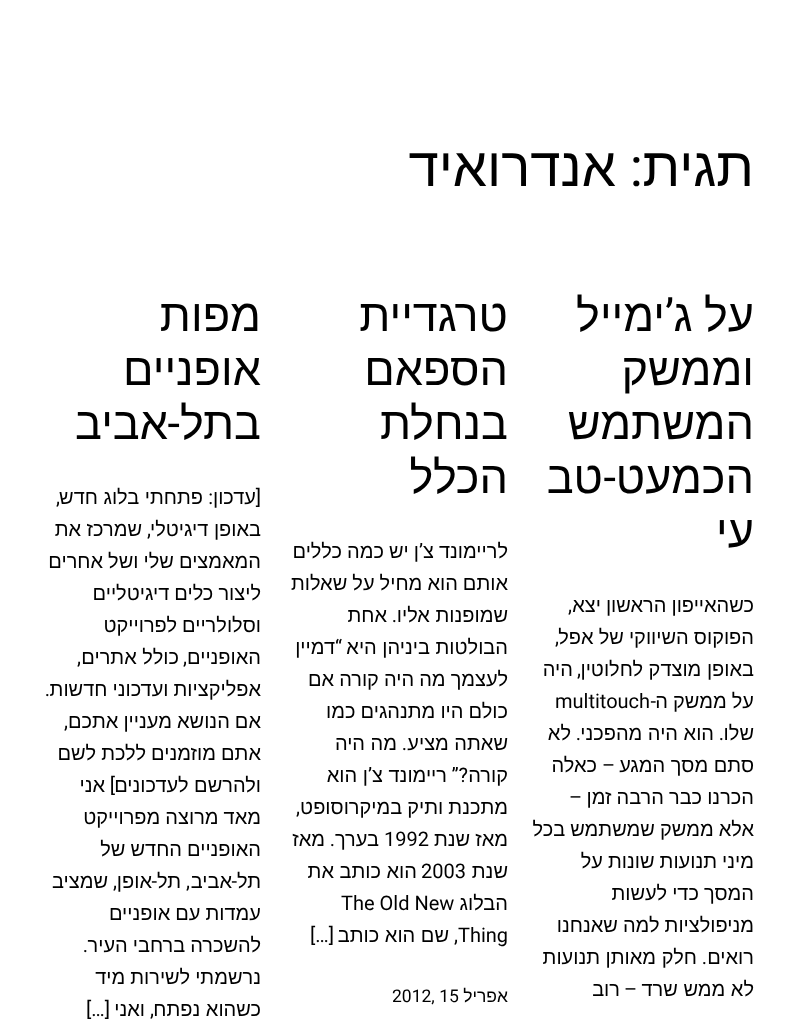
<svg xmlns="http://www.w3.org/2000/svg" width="793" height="1024">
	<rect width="100%" height="100%" fill="#FFFFFF" />
	<text x="754" y="186" font-family="Liberation Sans" font-size="54.5" direction="rtl" fill="#000000">תגית</text>
	<text x="643" y="186" font-family="Roboto" font-size="54.5" direction="rtl" fill="#000000">:</text>
	<text x="616" y="186" font-family="Liberation Sans" font-size="54.5" direction="rtl" fill="#000000">אנדרואיד</text>
	<text x="754" y="331" word-spacing="-1" font-family="Liberation Sans" font-size="45" direction="rtl" fill="#000000">על ג</text>
	<text x="674" y="331" font-family="Roboto" font-size="45" direction="rtl" fill="#000000">’</text>
	<g font-family="Liberation Sans" font-size="45" direction="rtl" fill="#000000">
		<text x="665" y="331">ימייל</text>
		<text x="754" y="385">וממשק</text>
		<text x="754" y="439">המשתמש</text>
		<text x="754" y="493">הכמעט</text>
	</g>
	<text x="616" y="493" font-family="Roboto" font-size="45" direction="rtl" fill="#000000">-</text>
	<g font-family="Liberation Sans" font-size="45" direction="rtl" fill="#000000">
		<text x="603" y="493">טב</text>
		<text x="754" y="547">עי</text>
	</g>
	<text x="754" y="612" word-spacing="-0.5" font-family="Liberation Sans" font-size="20" direction="rtl" fill="#000000">כשהאייפון הראשון יצא</text>
	<text x="572" y="612" font-family="Roboto" font-size="20" direction="rtl" fill="#000000">,</text>
	<text x="754" y="644" word-spacing="-0.5" font-family="Liberation Sans" font-size="20" direction="rtl" fill="#000000">הפוקוס השיווקי של אפל</text>
	<text x="559" y="644" font-family="Roboto" font-size="20" direction="rtl" fill="#000000">,</text>
	<text x="754" y="676" font-family="Liberation Sans" font-size="20" direction="rtl" fill="#000000">באופן מוצדק לחלוטין</text>
	<text x="581" y="676" font-family="Roboto" font-size="20" direction="rtl" fill="#000000">,</text>
	<g font-family="Liberation Sans" font-size="20" direction="rtl" fill="#000000">
		<text x="573" y="676">היה</text>
		<text x="754" y="708" word-spacing="-0.5">על ממשק ה</text>
	</g>
	<text x="656" y="708" font-family="Roboto" font-size="20" direction="rtl" fill="#000000">-</text>
	<text x="555" y="708" font-family="Roboto" font-size="20" fill="#000000">multitouch</text>
	<text x="754" y="740" font-family="Liberation Sans" font-size="20" direction="rtl" fill="#000000">שלו</text>
	<text x="724" y="740" font-family="Roboto" font-size="20" direction="rtl" fill="#000000">.</text>
	<text x="714" y="740" font-family="Liberation Sans" font-size="20" direction="rtl" fill="#000000">הוא היה מהפכני</text>
	<text x="581" y="740" font-family="Roboto" font-size="20" direction="rtl" fill="#000000">.</text>
	<g font-family="Liberation Sans" font-size="20" direction="rtl" fill="#000000">
		<text x="571" y="740">לא</text>
		<text x="754" y="772">סתם מסך המגע</text>
	</g>
	<text x="615" y="772" font-family="Roboto" font-size="20" direction="rtl" fill="#000000">–</text>
	<g font-family="Liberation Sans" font-size="20" direction="rtl" fill="#000000">
		<text x="597" y="772">כאלה</text>
		<text x="754" y="804" word-spacing="-0.5">הכרנו כבר הרבה זמן</text>
	</g>
	<text x="582" y="804" font-family="Roboto" font-size="20" direction="rtl" fill="#000000">–</text>
	<g font-family="Liberation Sans" font-size="20" direction="rtl" fill="#000000">
		<text x="754" y="836" word-spacing="-0.5">אלא ממשק שמשתמש בכל</text>
		<text x="754" y="868" word-spacing="-0.5">מיני תנועות שונות על</text>
		<text x="754" y="900" word-spacing="-0.5">המסך כדי לעשות</text>
		<text x="754" y="932" word-spacing="-0.5">מניפולציות למה שאנחנו</text>
		<text x="754" y="964">רואים</text>
	</g>
	<text x="707" y="964" font-family="Roboto" font-size="20" direction="rtl" fill="#000000">.</text>
	<g font-family="Liberation Sans" font-size="20" direction="rtl" fill="#000000">
		<text x="697" y="964">חלק מאותן תנועות</text>
		<text x="754" y="996">לא ממש שרד</text>
	</g>
	<text x="637" y="996" font-family="Roboto" font-size="20" direction="rtl" fill="#000000">–</text>
	<text x="620" y="996" font-family="Liberation Sans" font-size="20" direction="rtl" fill="#000000">רוב</text>
	<g font-family="Liberation Sans" font-size="45" direction="rtl" fill="#000000">
		<text x="508" y="331">טרגדיית</text>
		<text x="508" y="385">הספאם</text>
		<text x="508" y="439">בנחלת</text>
		<text x="508" y="493">הכלל</text>
	</g>
	<text x="508" y="558" word-spacing="-0.5" font-family="Liberation Sans" font-size="20" direction="rtl" fill="#000000">לריימונד צ</text>
	<text x="423" y="558" font-family="Roboto" font-size="20" direction="rtl" fill="#000000">’</text>
	<g font-family="Liberation Sans" font-size="20" direction="rtl" fill="#000000">
		<text x="419" y="558" word-spacing="-0.5">ן יש כמה כללים</text>
		<text x="508" y="590" word-spacing="-0.5">אותם הוא מחיל על שאלות</text>
		<text x="508" y="622">שמופנות אליו</text>
	</g>
	<text x="397" y="622" font-family="Roboto" font-size="20" direction="rtl" fill="#000000">.</text>
	<g font-family="Liberation Sans" font-size="20" direction="rtl" fill="#000000">
		<text x="387" y="622">אחת</text>
		<text x="508" y="654">הבולטות ביניהן היא</text>
	</g>
	<text x="342" y="654" font-family="Roboto" font-size="20" direction="rtl" fill="#000000">“</text>
	<g font-family="Liberation Sans" font-size="20" direction="rtl" fill="#000000">
		<text x="335" y="654">דמיין</text>
		<text x="508" y="686" word-spacing="-0.5">לעצמך מה היה קורה אם</text>
		<text x="508" y="718" word-spacing="-0.5">כולם היו מתנהגים כמו</text>
		<text x="508" y="750">שאתה מציע</text>
	</g>
	<text x="407" y="750" font-family="Roboto" font-size="20" direction="rtl" fill="#000000">.</text>
	<g font-family="Liberation Sans" font-size="20" direction="rtl" fill="#000000">
		<text x="397" y="750">מה היה</text>
		<text x="508" y="782">קורה</text>
	</g>
	<text x="468" y="782" font-family="Roboto" font-size="20" direction="rtl" fill="#000000">?”</text>
	<text x="447" y="782" font-family="Liberation Sans" font-size="20" direction="rtl" fill="#000000">ריימונד צ</text>
	<text x="372" y="782" font-family="Roboto" font-size="20" direction="rtl" fill="#000000">’</text>
	<g font-family="Liberation Sans" font-size="20" direction="rtl" fill="#000000">
		<text x="368" y="782">ן הוא</text>
		<text x="508" y="814" word-spacing="-0.5">מתכנת ותיק במיקרוסופט</text>
	</g>
	<text x="300" y="814" font-family="Roboto" font-size="20" direction="rtl" fill="#000000">,</text>
	<text x="508" y="846" word-spacing="-0.5" font-family="Liberation Sans" font-size="20" direction="rtl" fill="#000000">מאז שנת</text>
	<text x="384" y="846" font-family="Roboto" font-size="20" fill="#000000">1992</text>
	<text x="379" y="846" font-family="Liberation Sans" font-size="20" direction="rtl" fill="#000000">בערך</text>
	<text x="335" y="846" font-family="Roboto" font-size="20" direction="rtl" fill="#000000">.</text>
	<g font-family="Liberation Sans" font-size="20" direction="rtl" fill="#000000">
		<text x="325" y="846">מאז</text>
		<text x="508" y="878">שנת</text>
	</g>
	<text x="421" y="878" font-family="Roboto" font-size="20" fill="#000000">2003</text>
	<g font-family="Liberation Sans" font-size="20" direction="rtl" fill="#000000">
		<text x="417" y="878">הוא כותב את</text>
		<text x="508" y="910">הבלוג</text>
	</g>
	<g font-family="Roboto" font-size="20" fill="#000000">
		<text x="341" y="910">The Old New</text>
		<text x="458" y="942">Thing</text>
	</g>
	<text x="458" y="942" font-family="Roboto" font-size="20" direction="rtl" fill="#000000">,</text>
	<text x="449" y="942" font-family="Liberation Sans" font-size="20" direction="rtl" fill="#000000">שם הוא כותב</text>
	<text x="334" y="942" font-family="Roboto" font-size="20" direction="rtl" fill="#000000">[…]</text>
	<text x="508" y="1002" font-family="Liberation Sans" font-size="17.5" direction="rtl" fill="#000000">אפריל</text>
	<text x="392" y="1002" font-family="Roboto" font-size="17.5" fill="#000000">2012, 15</text>
	<g font-family="Liberation Sans" font-size="45" direction="rtl" fill="#000000">
		<text x="261" y="331">מפות</text>
		<text x="261" y="385">אופניים</text>
		<text x="261" y="439">בתל</text>
	</g>
	<text x="180" y="439" font-family="Roboto" font-size="45" direction="rtl" fill="#000000">-</text>
	<text x="168" y="439" font-family="Liberation Sans" font-size="45" direction="rtl" fill="#000000">אביב</text>
	<text x="261" y="504" font-family="Roboto" font-size="20" direction="rtl" fill="#000000">[</text>
	<text x="256" y="504" font-family="Liberation Sans" font-size="20" direction="rtl" fill="#000000">עדכון</text>
	<text x="213" y="504" font-family="Roboto" font-size="20" direction="rtl" fill="#000000">:</text>
	<text x="203" y="504" font-family="Liberation Sans" font-size="20" direction="rtl" fill="#000000">פתחתי בלוג חדש</text>
	<text x="60" y="504" font-family="Roboto" font-size="20" direction="rtl" fill="#000000">,</text>
	<text x="261" y="536" font-family="Liberation Sans" font-size="20" direction="rtl" fill="#000000">באופן דיגיטלי</text>
	<text x="151" y="536" font-family="Roboto" font-size="20" direction="rtl" fill="#000000">,</text>
	<g font-family="Liberation Sans" font-size="20" direction="rtl" fill="#000000">
		<text x="142" y="536">שמרכז את</text>
		<text x="261" y="568" word-spacing="-0.5">המאמצים שלי ושל אחרים</text>
		<text x="261" y="600" word-spacing="-0.5">ליצור כלים דיגיטליים</text>
		<text x="261" y="632" word-spacing="-0.5">וסלולריים לפרוייקט</text>
		<text x="261" y="664">האופניים</text>
	</g>
	<text x="187" y="664" font-family="Roboto" font-size="20" direction="rtl" fill="#000000">,</text>
	<text x="179" y="664" font-family="Liberation Sans" font-size="20" direction="rtl" fill="#000000">כולל אתרים</text>
	<text x="81" y="664" font-family="Roboto" font-size="20" direction="rtl" fill="#000000">,</text>
	<text x="261" y="696" word-spacing="-0.5" font-family="Liberation Sans" font-size="20" direction="rtl" fill="#000000">אפליקציות ועדכוני חדשות</text>
	<text x="50" y="696" font-family="Roboto" font-size="20" direction="rtl" fill="#000000">.</text>
	<text x="261" y="728" word-spacing="-0.5" font-family="Liberation Sans" font-size="20" direction="rtl" fill="#000000">אם הנושא מעניין אתכם</text>
	<text x="68" y="728" font-family="Roboto" font-size="20" direction="rtl" fill="#000000">,</text>
	<g font-family="Liberation Sans" font-size="20" direction="rtl" fill="#000000">
		<text x="261" y="760" word-spacing="-0.5">אתם מוזמנים ללכת לשם</text>
		<text x="261" y="792">ולהרשם לעדכונים</text>
	</g>
	<text x="115" y="792" font-family="Roboto" font-size="20" direction="rtl" fill="#000000">]</text>
	<g font-family="Liberation Sans" font-size="20" direction="rtl" fill="#000000">
		<text x="105" y="792">אני</text>
		<text x="261" y="824" word-spacing="-0.5">מאד מרוצה מפרוייקט</text>
		<text x="261" y="856" word-spacing="-0.5">האופניים החדש של</text>
		<text x="261" y="888">תל</text>
	</g>
	<text x="237" y="888" font-family="Roboto" font-size="20" direction="rtl" fill="#000000">-</text>
	<g font-family="Liberation Sans" font-size="20" direction="rtl" fill="#000000">
		<text x="232" y="888">אביב</text>
		<text x="181" y="888">תל</text>
	</g>
	<text x="157" y="888" font-family="Roboto" font-size="20" direction="rtl" fill="#000000">-</text>
	<g font-family="Liberation Sans" font-size="20" direction="rtl" fill="#000000">
		<text x="152" y="888">אופן</text>
		<text x="108" y="888">שמציב</text>
	</g>
	<g font-family="Roboto" font-size="20" direction="rtl" fill="#000000">
		<text x="190" y="888">,</text>
		<text x="117" y="888">,</text>
	</g>
	<g font-family="Liberation Sans" font-size="20" direction="rtl" fill="#000000">
		<text x="261" y="920" word-spacing="-0.5">עמדות עם אופניים</text>
		<text x="261" y="952" word-spacing="-0.5">להשכרה ברחבי העיר</text>
	</g>
	<text x="88" y="952" font-family="Roboto" font-size="20" direction="rtl" fill="#000000">.</text>
	<g font-family="Liberation Sans" font-size="20" direction="rtl" fill="#000000">
		<text x="261" y="984" word-spacing="-0.5">נרשמתי לשירות מיד</text>
		<text x="261" y="1016">כשהוא נפתח</text>
	</g>
	<text x="154" y="1016" font-family="Roboto" font-size="20" direction="rtl" fill="#000000">,</text>
	<text x="145" y="1016" font-family="Liberation Sans" font-size="20" direction="rtl" fill="#000000">ואני</text>
	<text x="110" y="1016" font-family="Roboto" font-size="20" direction="rtl" fill="#000000">[…]</text>
</svg>
